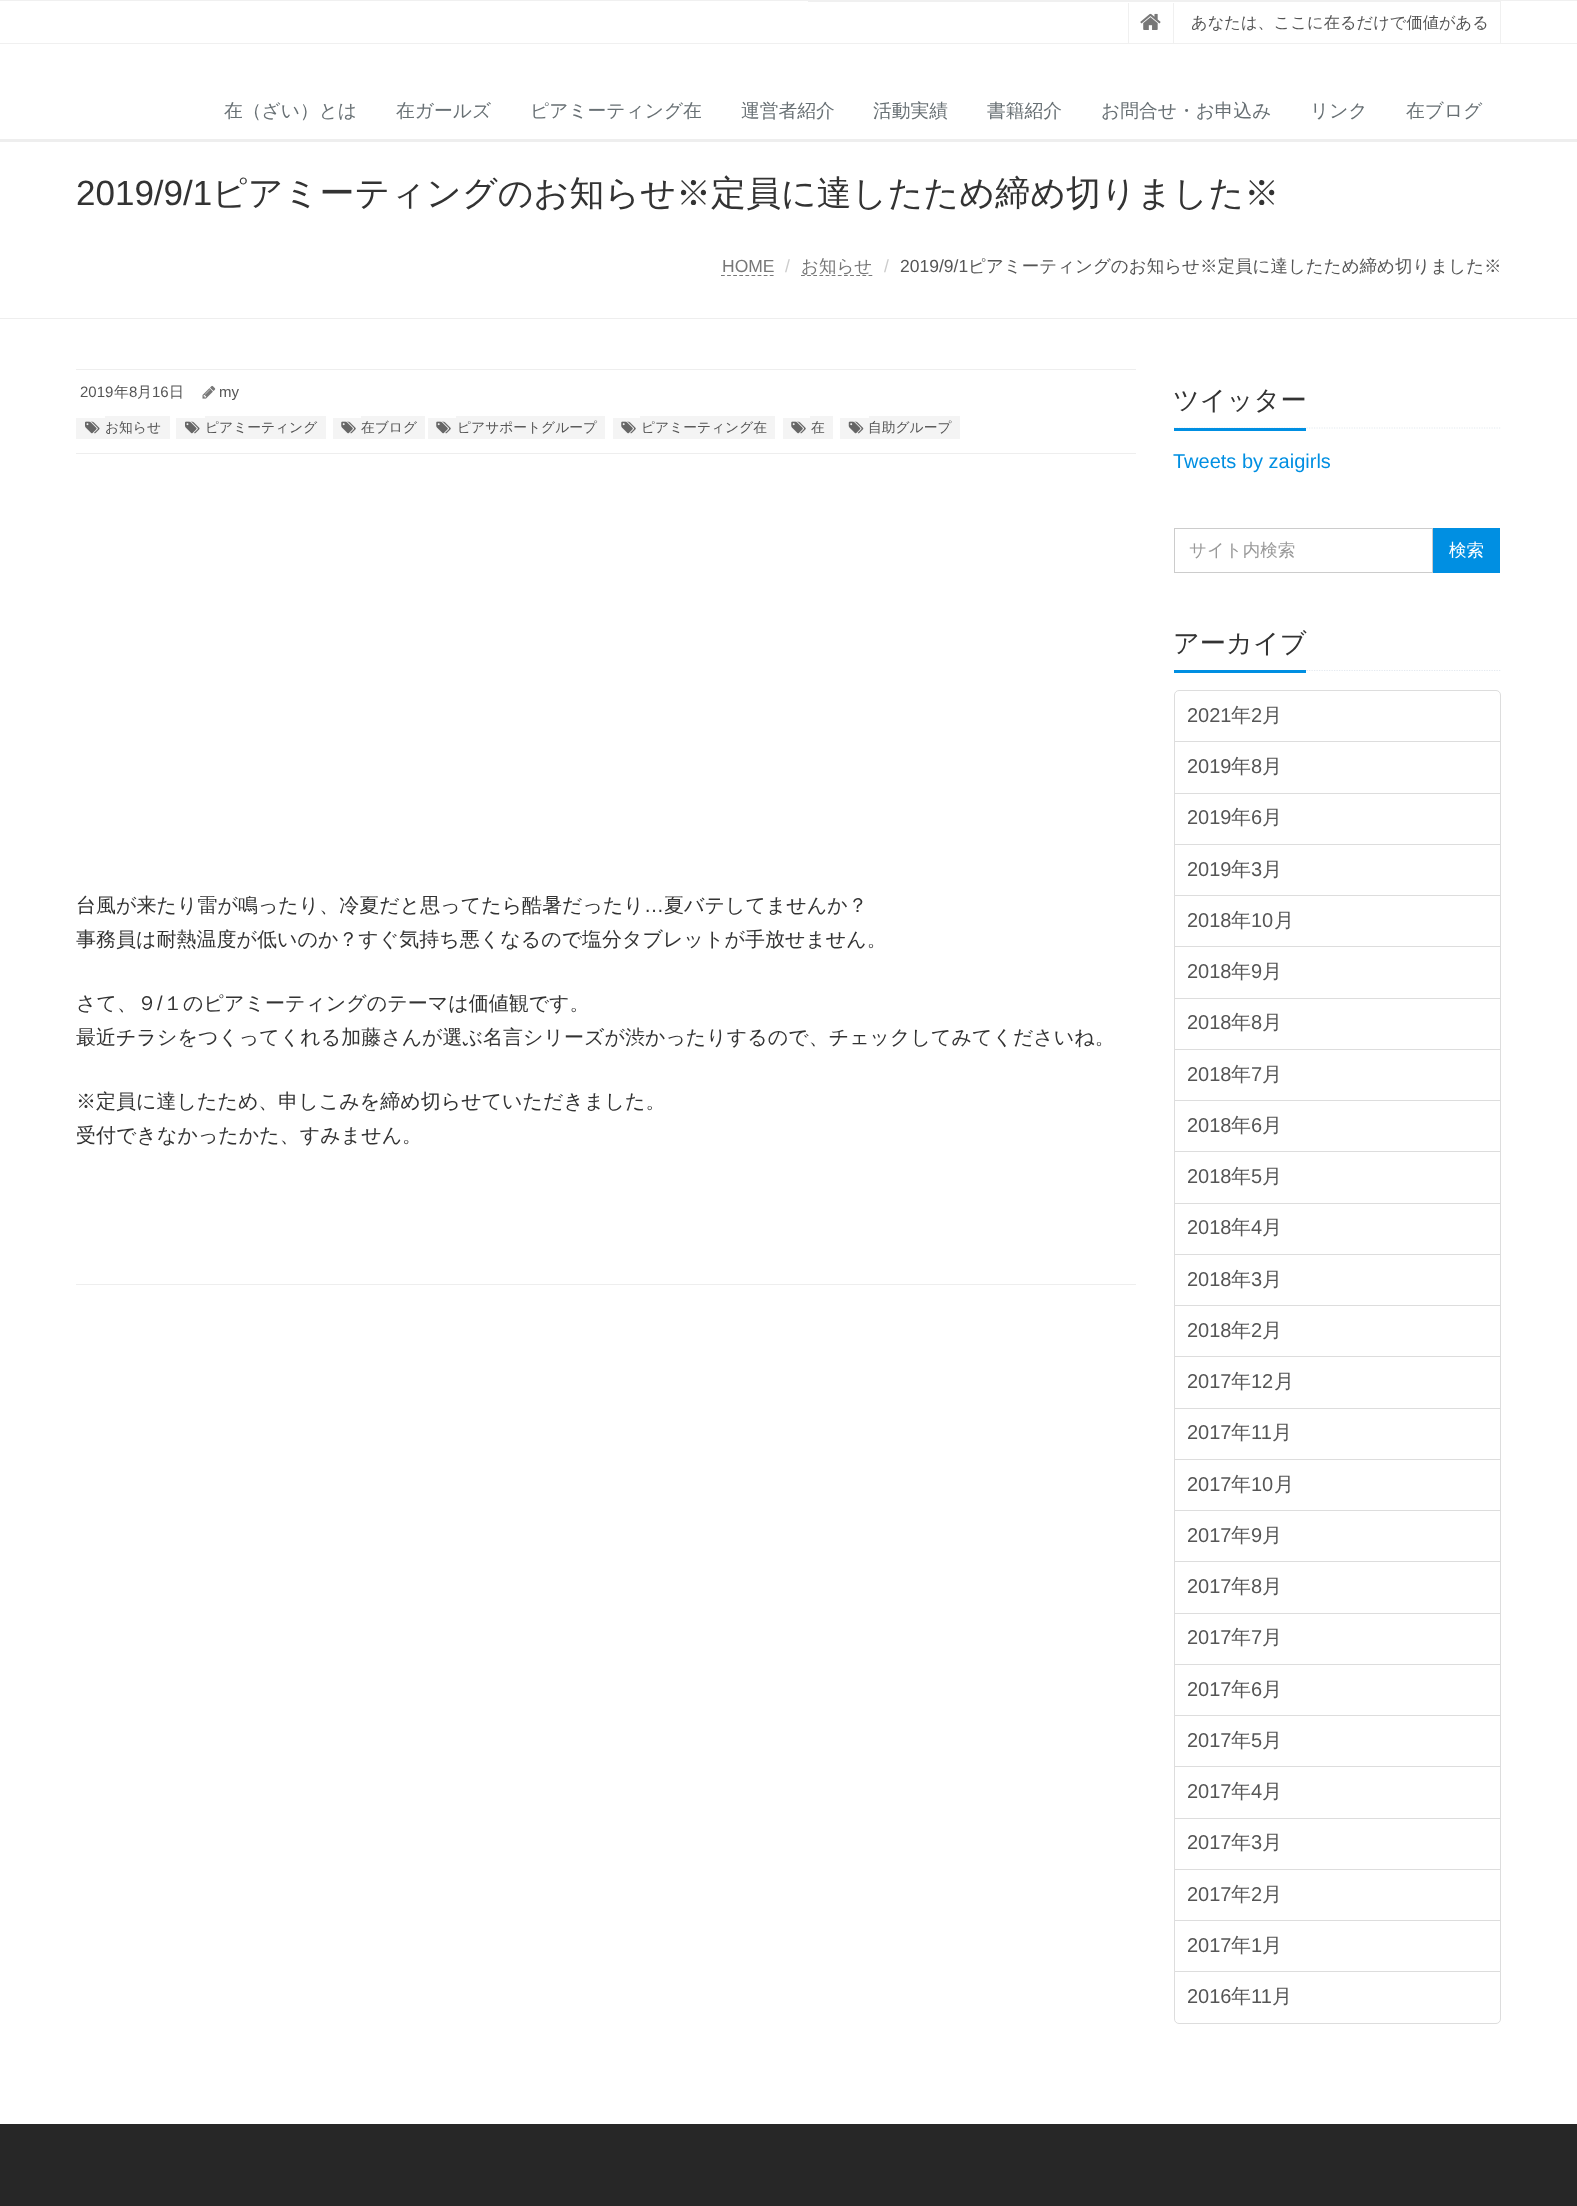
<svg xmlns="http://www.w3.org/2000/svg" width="1577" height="2206">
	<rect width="100%" height="100%" fill="#FFFFFF" />
	<rect x="0" y="139" width="1577" height="3" fill="#EEEEEE" />
	<rect x="0" y="0" width="1577" height="1" fill="#F0F0F0" />
	<rect x="0" y="43" width="1577" height="1" fill="#F0F0F0" />
	<rect x="808" y="1" width="693" height="1" fill="#F0F0F0" />
	<rect x="1500" y="1" width="1" height="42" fill="#F0F0F0" />
	<rect x="1173" y="3" width="1" height="40" fill="#F0F0F0" />
	<rect x="1128" y="3" width="1" height="40" fill="#F0F0F0" />
	<image x="1140" y="13" width="21" height="17" href="assets/img1.png" />
	<text x="1191" y="28" font-family="WenQuanYi Zen Hei" font-size="16.25" font-weight="500" fill="#555555">あなたは、ここに在るだけで価値がある</text>
	<g font-family="WenQuanYi Zen Hei" font-size="18.75" font-weight="500" fill="#687074">
		<text x="224" y="117">在（ざい）とは</text>
		<text x="396" y="117">在ガールズ</text>
		<text x="530" y="117">ピアミーティング在</text>
		<text x="741" y="117">運営者紹介</text>
		<text x="873" y="117">活動実績</text>
		<text x="987" y="117">書籍紹介</text>
		<text x="1101" y="117">お問合せ・お申込み</text>
		<text x="1310" y="117">リンク</text>
		<text x="1406" y="117">在ブログ</text>
	</g>
	<rect x="0" y="318" width="1577" height="1" fill="#EEEEEE" />
	<text x="76" y="205" font-family="Liberation Sans" font-size="35" fill="#333333">2019/9/1</text>
	<text x="212" y="205" font-family="WenQuanYi Zen Hei" font-size="35" font-weight="500" fill="#333333">ピアミーティングのお知らせ※定員に達したため締め切りました※</text>
	<text x="722" y="272" font-family="Liberation Sans" font-size="17.5" fill="#777777">HOME</text>
	<path d="M721 275.5H774" fill="none" stroke="#777777" stroke-width="1.2" stroke-dasharray="3.75 2.35" />
	<text x="785" y="272" font-family="Liberation Sans" font-size="17.5" fill="#CCCCCC">/</text>
	<path d="M801 275.5H872.5" fill="none" stroke="#777777" stroke-width="1.2" stroke-dasharray="3.75 2.39" />
	<text x="801" y="272" font-family="WenQuanYi Zen Hei" font-size="17.5" font-weight="500" fill="#777777">お知らせ</text>
	<text x="884" y="272" font-family="Liberation Sans" font-size="17.5" fill="#CCCCCC">/</text>
	<text x="900" y="272" font-family="Liberation Sans" font-size="17.5" fill="#555555">2019/9/1</text>
	<text x="968" y="272" font-family="WenQuanYi Zen Hei" font-size="17.5" font-weight="500" fill="#555555">ピアミーティングのお知らせ※定員に達したため締め切りました※</text>
	<rect x="76" y="369" width="1060" height="1" fill="#EEEEEE" />
	<rect x="76" y="453" width="1060" height="1" fill="#EEEEEE" />
	<text x="80" y="397" font-family="Liberation Sans" font-size="15" fill="#555555">2019</text>
	<text x="114" y="397" font-family="WenQuanYi Zen Hei" font-size="15" font-weight="500" fill="#555555">年</text>
	<text x="129" y="397" font-family="Liberation Sans" font-size="15" fill="#555555">8</text>
	<text x="137" y="397" font-family="WenQuanYi Zen Hei" font-size="15" font-weight="500" fill="#555555">月</text>
	<text x="152" y="397" font-family="Liberation Sans" font-size="15" fill="#555555">16</text>
	<text x="169" y="397" font-family="WenQuanYi Zen Hei" font-size="15" font-weight="500" fill="#555555">日</text>
	<image x="202" y="385" width="14" height="14" href="assets/img2.png" />
	<text x="219" y="397" font-family="Liberation Sans" font-size="15" fill="#555555">my</text>
	<rect x="76" y="418" width="29" height="21" fill="#F4F4F4" />
	<image x="85" y="421" width="15" height="13" href="assets/img3.png" />
	<rect x="105" y="416" width="65" height="23" fill="#F4F4F4" />
	<text x="105" y="432" font-family="WenQuanYi Zen Hei" font-size="13.75" font-weight="500" fill="#555555">お知らせ</text>
	<rect x="176" y="418" width="29" height="21" fill="#F4F4F4" />
	<image x="185" y="421" width="15" height="13" href="assets/img3.png" />
	<rect x="205" y="416" width="121" height="23" fill="#F4F4F4" />
	<text x="205" y="432" font-family="WenQuanYi Zen Hei" font-size="13.75" font-weight="500" fill="#555555">ピアミーティング</text>
	<rect x="333" y="418" width="28" height="21" fill="#F4F4F4" />
	<image x="341" y="421" width="15" height="13" href="assets/img4.png" />
	<rect x="361" y="416" width="64" height="23" fill="#F4F4F4" />
	<text x="361" y="432" font-family="WenQuanYi Zen Hei" font-size="13.75" font-weight="500" fill="#555555">在ブログ</text>
	<rect x="428" y="418" width="28" height="21" fill="#F4F4F4" />
	<image x="436" y="421" width="15" height="13" href="assets/img4.png" />
	<rect x="456" y="416" width="149" height="23" fill="#F4F4F4" />
	<text x="457" y="432" font-family="WenQuanYi Zen Hei" font-size="13.75" font-weight="500" fill="#555555">ピアサポートグループ</text>
	<rect x="613" y="418" width="27" height="21" fill="#F4F4F4" />
	<image x="621" y="421" width="15" height="13" href="assets/img4.png" />
	<rect x="640" y="416" width="135" height="23" fill="#F4F4F4" />
	<text x="641" y="432" font-family="WenQuanYi Zen Hei" font-size="13.75" font-weight="500" fill="#555555">ピアミーティング在</text>
	<rect x="783" y="418" width="27" height="21" fill="#F4F4F4" />
	<image x="791" y="421" width="15" height="13" href="assets/img4.png" />
	<rect x="810" y="416" width="23" height="23" fill="#F4F4F4" />
	<text x="811" y="432" font-family="WenQuanYi Zen Hei" font-size="13.75" font-weight="500" fill="#555555">在</text>
	<rect x="840" y="418" width="29" height="21" fill="#F4F4F4" />
	<image x="848" y="421" width="16" height="13" href="assets/img5.png" />
	<rect x="869" y="416" width="91" height="23" fill="#F4F4F4" />
	<text x="868" y="432" font-family="WenQuanYi Zen Hei" font-size="13.75" font-weight="500" fill="#555555">自助グループ</text>
	<text x="76" y="912" font-family="WenQuanYi Zen Hei" font-size="20" font-weight="500" fill="#333333">台風が来たり雷が鳴ったり、冷夏だと思ってたら酷暑だったり</text>
	<text x="644" y="912" font-family="Liberation Sans" font-size="20" fill="#333333">…</text>
	<g font-family="WenQuanYi Zen Hei" font-size="20" font-weight="500" fill="#333333">
		<text x="664" y="912">夏バテしてませんか？</text>
		<text x="76" y="946">事務員は耐熱温度が低いのか？すぐ気持ち悪くなるので塩分タブレットが手放せません。</text>
		<text x="76" y="1010">さて、９</text>
	</g>
	<text x="157" y="1010" font-family="Liberation Sans" font-size="20" fill="#333333">/</text>
	<g font-family="WenQuanYi Zen Hei" font-size="20" font-weight="500" fill="#333333">
		<text x="163" y="1010">１のピアミーティングのテーマは価値観です。</text>
		<text x="76" y="1044">最近チラシをつくってくれる加藤さんが選ぶ名言シリーズが渋かったりするので、チェックしてみてくださいね。</text>
		<text x="76" y="1108">※定員に達したため、申しこみを締め切らせていただきました。</text>
		<text x="76" y="1142">受付できなかったかた、すみません。</text>
	</g>
	<rect x="76" y="1284" width="1060" height="1" fill="#EEEEEE" />
	<path d="M1174 428H1501" fill="none" stroke="#E4E9F0" stroke-width="1.2" stroke-dasharray="1.25 1.25" />
	<rect x="1174" y="428" width="132" height="3" fill="#008FE2" />
	<text x="1173" y="409" font-family="WenQuanYi Zen Hei" font-size="26.25" font-weight="500" fill="#333333">ツイッター</text>
	<text x="1173" y="468" font-family="Liberation Sans" font-size="20" fill="#008FE2">Tweets by zaigirls</text>
	<rect x="1174.5" y="528.5" width="258" height="44" fill="none" stroke="#CCCCCC" />
	<text x="1189" y="556" font-family="WenQuanYi Zen Hei" font-size="17.5" font-weight="500" fill="#999999">サイト内検索</text>
	<rect x="1433" y="528" width="67" height="45" fill="#008FE2" />
	<text x="1449" y="556" font-family="WenQuanYi Zen Hei" font-size="17.5" font-weight="500" fill="#FFFFFF">検索</text>
	<path d="M1174 670.5H1501" fill="none" stroke="#E4E9F0" stroke-width="1.2" stroke-dasharray="1.25 1.25" />
	<rect x="1174" y="670" width="132" height="3" fill="#008FE2" />
	<text x="1173" y="652" font-family="WenQuanYi Zen Hei" font-size="26.25" font-weight="500" fill="#333333">アーカイブ</text>
	<path d="M1179 690.5H1496C1498.5 690.5 1500.5 692.5 1500.5 695V742.5H1174.5V695C1174.5 692.5 1176.5 690.5 1179 690.5Z" fill="none" stroke="#DDDDDD" />
	<text x="1187" y="722" font-family="Liberation Sans" font-size="20" fill="#555555">2021</text>
	<text x="1231" y="722" font-family="WenQuanYi Zen Hei" font-size="20" font-weight="500" fill="#555555">年</text>
	<text x="1251" y="722" font-family="Liberation Sans" font-size="20" fill="#555555">2</text>
	<text x="1262" y="722" font-family="WenQuanYi Zen Hei" font-size="20" font-weight="500" fill="#555555">月</text>
	<rect x="1175" y="742" width="325" height="1" fill="#FFFFFF" />
	<rect x="1174.5" y="741.5" width="326" height="52" fill="none" stroke="#DDDDDD" />
	<text x="1187" y="773" font-family="Liberation Sans" font-size="20" fill="#555555">2019</text>
	<text x="1231" y="773" font-family="WenQuanYi Zen Hei" font-size="20" font-weight="500" fill="#555555">年</text>
	<text x="1251" y="773" font-family="Liberation Sans" font-size="20" fill="#555555">8</text>
	<text x="1262" y="773" font-family="WenQuanYi Zen Hei" font-size="20" font-weight="500" fill="#555555">月</text>
	<rect x="1174.5" y="793.5" width="326" height="51" fill="none" stroke="#DDDDDD" />
	<text x="1187" y="824" font-family="Liberation Sans" font-size="20" fill="#555555">2019</text>
	<text x="1231" y="824" font-family="WenQuanYi Zen Hei" font-size="20" font-weight="500" fill="#555555">年</text>
	<text x="1251" y="824" font-family="Liberation Sans" font-size="20" fill="#555555">6</text>
	<text x="1262" y="824" font-family="WenQuanYi Zen Hei" font-size="20" font-weight="500" fill="#555555">月</text>
	<rect x="1174.5" y="844.5" width="326" height="51" fill="none" stroke="#DDDDDD" />
	<text x="1187" y="876" font-family="Liberation Sans" font-size="20" fill="#555555">2019</text>
	<text x="1231" y="876" font-family="WenQuanYi Zen Hei" font-size="20" font-weight="500" fill="#555555">年</text>
	<text x="1251" y="876" font-family="Liberation Sans" font-size="20" fill="#555555">3</text>
	<text x="1262" y="876" font-family="WenQuanYi Zen Hei" font-size="20" font-weight="500" fill="#555555">月</text>
	<rect x="1174.5" y="895.5" width="326" height="52" fill="none" stroke="#DDDDDD" />
	<text x="1187" y="927" font-family="Liberation Sans" font-size="20" fill="#555555">2018</text>
	<text x="1231" y="927" font-family="WenQuanYi Zen Hei" font-size="20" font-weight="500" fill="#555555">年</text>
	<text x="1251" y="927" font-family="Liberation Sans" font-size="20" fill="#555555">10</text>
	<text x="1274" y="927" font-family="WenQuanYi Zen Hei" font-size="20" font-weight="500" fill="#555555">月</text>
	<rect x="1175" y="947" width="325" height="1" fill="#FFFFFF" />
	<rect x="1174.5" y="946.5" width="326" height="52" fill="none" stroke="#DDDDDD" />
	<text x="1187" y="978" font-family="Liberation Sans" font-size="20" fill="#555555">2018</text>
	<text x="1231" y="978" font-family="WenQuanYi Zen Hei" font-size="20" font-weight="500" fill="#555555">年</text>
	<text x="1251" y="978" font-family="Liberation Sans" font-size="20" fill="#555555">9</text>
	<text x="1262" y="978" font-family="WenQuanYi Zen Hei" font-size="20" font-weight="500" fill="#555555">月</text>
	<rect x="1174.5" y="998.5" width="326" height="51" fill="none" stroke="#DDDDDD" />
	<text x="1187" y="1029" font-family="Liberation Sans" font-size="20" fill="#555555">2018</text>
	<text x="1231" y="1029" font-family="WenQuanYi Zen Hei" font-size="20" font-weight="500" fill="#555555">年</text>
	<text x="1251" y="1029" font-family="Liberation Sans" font-size="20" fill="#555555">8</text>
	<text x="1262" y="1029" font-family="WenQuanYi Zen Hei" font-size="20" font-weight="500" fill="#555555">月</text>
	<rect x="1174.5" y="1049.5" width="326" height="51" fill="none" stroke="#DDDDDD" />
	<text x="1187" y="1081" font-family="Liberation Sans" font-size="20" fill="#555555">2018</text>
	<text x="1231" y="1081" font-family="WenQuanYi Zen Hei" font-size="20" font-weight="500" fill="#555555">年</text>
	<text x="1251" y="1081" font-family="Liberation Sans" font-size="20" fill="#555555">7</text>
	<text x="1262" y="1081" font-family="WenQuanYi Zen Hei" font-size="20" font-weight="500" fill="#555555">月</text>
	<rect x="1174.5" y="1100.5" width="326" height="52" fill="none" stroke="#DDDDDD" />
	<text x="1187" y="1132" font-family="Liberation Sans" font-size="20" fill="#555555">2018</text>
	<text x="1231" y="1132" font-family="WenQuanYi Zen Hei" font-size="20" font-weight="500" fill="#555555">年</text>
	<text x="1251" y="1132" font-family="Liberation Sans" font-size="20" fill="#555555">6</text>
	<text x="1262" y="1132" font-family="WenQuanYi Zen Hei" font-size="20" font-weight="500" fill="#555555">月</text>
	<rect x="1175" y="1152" width="325" height="1" fill="#FFFFFF" />
	<rect x="1174.5" y="1151.5" width="326" height="52" fill="none" stroke="#DDDDDD" />
	<text x="1187" y="1183" font-family="Liberation Sans" font-size="20" fill="#555555">2018</text>
	<text x="1231" y="1183" font-family="WenQuanYi Zen Hei" font-size="20" font-weight="500" fill="#555555">年</text>
	<text x="1251" y="1183" font-family="Liberation Sans" font-size="20" fill="#555555">5</text>
	<text x="1262" y="1183" font-family="WenQuanYi Zen Hei" font-size="20" font-weight="500" fill="#555555">月</text>
	<rect x="1174.5" y="1203.5" width="326" height="51" fill="none" stroke="#DDDDDD" />
	<text x="1187" y="1234" font-family="Liberation Sans" font-size="20" fill="#555555">2018</text>
	<text x="1231" y="1234" font-family="WenQuanYi Zen Hei" font-size="20" font-weight="500" fill="#555555">年</text>
	<text x="1251" y="1234" font-family="Liberation Sans" font-size="20" fill="#555555">4</text>
	<text x="1262" y="1234" font-family="WenQuanYi Zen Hei" font-size="20" font-weight="500" fill="#555555">月</text>
	<rect x="1174.5" y="1254.5" width="326" height="51" fill="none" stroke="#DDDDDD" />
	<text x="1187" y="1286" font-family="Liberation Sans" font-size="20" fill="#555555">2018</text>
	<text x="1231" y="1286" font-family="WenQuanYi Zen Hei" font-size="20" font-weight="500" fill="#555555">年</text>
	<text x="1251" y="1286" font-family="Liberation Sans" font-size="20" fill="#555555">3</text>
	<text x="1262" y="1286" font-family="WenQuanYi Zen Hei" font-size="20" font-weight="500" fill="#555555">月</text>
	<rect x="1174.5" y="1305.5" width="326" height="52" fill="none" stroke="#DDDDDD" />
	<text x="1187" y="1337" font-family="Liberation Sans" font-size="20" fill="#555555">2018</text>
	<text x="1231" y="1337" font-family="WenQuanYi Zen Hei" font-size="20" font-weight="500" fill="#555555">年</text>
	<text x="1251" y="1337" font-family="Liberation Sans" font-size="20" fill="#555555">2</text>
	<text x="1262" y="1337" font-family="WenQuanYi Zen Hei" font-size="20" font-weight="500" fill="#555555">月</text>
	<rect x="1175" y="1357" width="325" height="1" fill="#FFFFFF" />
	<rect x="1174.5" y="1356.5" width="326" height="52" fill="none" stroke="#DDDDDD" />
	<text x="1187" y="1388" font-family="Liberation Sans" font-size="20" fill="#555555">2017</text>
	<text x="1231" y="1388" font-family="WenQuanYi Zen Hei" font-size="20" font-weight="500" fill="#555555">年</text>
	<text x="1251" y="1388" font-family="Liberation Sans" font-size="20" fill="#555555">12</text>
	<text x="1274" y="1388" font-family="WenQuanYi Zen Hei" font-size="20" font-weight="500" fill="#555555">月</text>
	<rect x="1174.5" y="1408.5" width="326" height="51" fill="none" stroke="#DDDDDD" />
	<text x="1187" y="1439" font-family="Liberation Sans" font-size="20" fill="#555555">2017</text>
	<text x="1231" y="1439" font-family="WenQuanYi Zen Hei" font-size="20" font-weight="500" fill="#555555">年</text>
	<text x="1251" y="1439" font-family="Liberation Sans" font-size="20" fill="#555555">11</text>
	<text x="1272" y="1439" font-family="WenQuanYi Zen Hei" font-size="20" font-weight="500" fill="#555555">月</text>
	<rect x="1174.5" y="1459.5" width="326" height="51" fill="none" stroke="#DDDDDD" />
	<text x="1187" y="1491" font-family="Liberation Sans" font-size="20" fill="#555555">2017</text>
	<text x="1231" y="1491" font-family="WenQuanYi Zen Hei" font-size="20" font-weight="500" fill="#555555">年</text>
	<text x="1251" y="1491" font-family="Liberation Sans" font-size="20" fill="#555555">10</text>
	<text x="1274" y="1491" font-family="WenQuanYi Zen Hei" font-size="20" font-weight="500" fill="#555555">月</text>
	<rect x="1174.5" y="1510.5" width="326" height="52" fill="none" stroke="#DDDDDD" />
	<text x="1187" y="1542" font-family="Liberation Sans" font-size="20" fill="#555555">2017</text>
	<text x="1231" y="1542" font-family="WenQuanYi Zen Hei" font-size="20" font-weight="500" fill="#555555">年</text>
	<text x="1251" y="1542" font-family="Liberation Sans" font-size="20" fill="#555555">9</text>
	<text x="1262" y="1542" font-family="WenQuanYi Zen Hei" font-size="20" font-weight="500" fill="#555555">月</text>
	<rect x="1175" y="1562" width="325" height="1" fill="#FFFFFF" />
	<rect x="1174.5" y="1561.5" width="326" height="52" fill="none" stroke="#DDDDDD" />
	<text x="1187" y="1593" font-family="Liberation Sans" font-size="20" fill="#555555">2017</text>
	<text x="1231" y="1593" font-family="WenQuanYi Zen Hei" font-size="20" font-weight="500" fill="#555555">年</text>
	<text x="1251" y="1593" font-family="Liberation Sans" font-size="20" fill="#555555">8</text>
	<text x="1262" y="1593" font-family="WenQuanYi Zen Hei" font-size="20" font-weight="500" fill="#555555">月</text>
	<rect x="1174.5" y="1613.5" width="326" height="51" fill="none" stroke="#DDDDDD" />
	<text x="1187" y="1644" font-family="Liberation Sans" font-size="20" fill="#555555">2017</text>
	<text x="1231" y="1644" font-family="WenQuanYi Zen Hei" font-size="20" font-weight="500" fill="#555555">年</text>
	<text x="1251" y="1644" font-family="Liberation Sans" font-size="20" fill="#555555">7</text>
	<text x="1262" y="1644" font-family="WenQuanYi Zen Hei" font-size="20" font-weight="500" fill="#555555">月</text>
	<rect x="1174.5" y="1664.5" width="326" height="51" fill="none" stroke="#DDDDDD" />
	<text x="1187" y="1696" font-family="Liberation Sans" font-size="20" fill="#555555">2017</text>
	<text x="1231" y="1696" font-family="WenQuanYi Zen Hei" font-size="20" font-weight="500" fill="#555555">年</text>
	<text x="1251" y="1696" font-family="Liberation Sans" font-size="20" fill="#555555">6</text>
	<text x="1262" y="1696" font-family="WenQuanYi Zen Hei" font-size="20" font-weight="500" fill="#555555">月</text>
	<rect x="1174.5" y="1715.5" width="326" height="52" fill="none" stroke="#DDDDDD" />
	<text x="1187" y="1747" font-family="Liberation Sans" font-size="20" fill="#555555">2017</text>
	<text x="1231" y="1747" font-family="WenQuanYi Zen Hei" font-size="20" font-weight="500" fill="#555555">年</text>
	<text x="1251" y="1747" font-family="Liberation Sans" font-size="20" fill="#555555">5</text>
	<text x="1262" y="1747" font-family="WenQuanYi Zen Hei" font-size="20" font-weight="500" fill="#555555">月</text>
	<rect x="1175" y="1767" width="325" height="1" fill="#FFFFFF" />
	<rect x="1174.5" y="1766.5" width="326" height="52" fill="none" stroke="#DDDDDD" />
	<text x="1187" y="1798" font-family="Liberation Sans" font-size="20" fill="#555555">2017</text>
	<text x="1231" y="1798" font-family="WenQuanYi Zen Hei" font-size="20" font-weight="500" fill="#555555">年</text>
	<text x="1251" y="1798" font-family="Liberation Sans" font-size="20" fill="#555555">4</text>
	<text x="1262" y="1798" font-family="WenQuanYi Zen Hei" font-size="20" font-weight="500" fill="#555555">月</text>
	<rect x="1174.5" y="1818.5" width="326" height="51" fill="none" stroke="#DDDDDD" />
	<text x="1187" y="1849" font-family="Liberation Sans" font-size="20" fill="#555555">2017</text>
	<text x="1231" y="1849" font-family="WenQuanYi Zen Hei" font-size="20" font-weight="500" fill="#555555">年</text>
	<text x="1251" y="1849" font-family="Liberation Sans" font-size="20" fill="#555555">3</text>
	<text x="1262" y="1849" font-family="WenQuanYi Zen Hei" font-size="20" font-weight="500" fill="#555555">月</text>
	<rect x="1174.5" y="1869.5" width="326" height="51" fill="none" stroke="#DDDDDD" />
	<text x="1187" y="1901" font-family="Liberation Sans" font-size="20" fill="#555555">2017</text>
	<text x="1231" y="1901" font-family="WenQuanYi Zen Hei" font-size="20" font-weight="500" fill="#555555">年</text>
	<text x="1251" y="1901" font-family="Liberation Sans" font-size="20" fill="#555555">2</text>
	<text x="1262" y="1901" font-family="WenQuanYi Zen Hei" font-size="20" font-weight="500" fill="#555555">月</text>
	<rect x="1174.5" y="1920.5" width="326" height="52" fill="none" stroke="#DDDDDD" />
	<text x="1187" y="1952" font-family="Liberation Sans" font-size="20" fill="#555555">2017</text>
	<text x="1231" y="1952" font-family="WenQuanYi Zen Hei" font-size="20" font-weight="500" fill="#555555">年</text>
	<text x="1251" y="1952" font-family="Liberation Sans" font-size="20" fill="#555555">1</text>
	<text x="1262" y="1952" font-family="WenQuanYi Zen Hei" font-size="20" font-weight="500" fill="#555555">月</text>
	<path d="M1174.5 1971.5H1500.5V2019C1500.5 2021.5 1498.5 2023.5 1496 2023.5H1179C1176.5 2023.5 1174.5 2021.5 1174.5 2019Z" fill="#FFFFFF" stroke="#DDDDDD" />
	<text x="1187" y="2003" font-family="Liberation Sans" font-size="20" fill="#555555">2016</text>
	<text x="1231" y="2003" font-family="WenQuanYi Zen Hei" font-size="20" font-weight="500" fill="#555555">年</text>
	<text x="1251" y="2003" font-family="Liberation Sans" font-size="20" fill="#555555">11</text>
	<text x="1272" y="2003" font-family="WenQuanYi Zen Hei" font-size="20" font-weight="500" fill="#555555">月</text>
	<rect x="0" y="2124" width="1577" height="82" fill="#272727" />
</svg>
